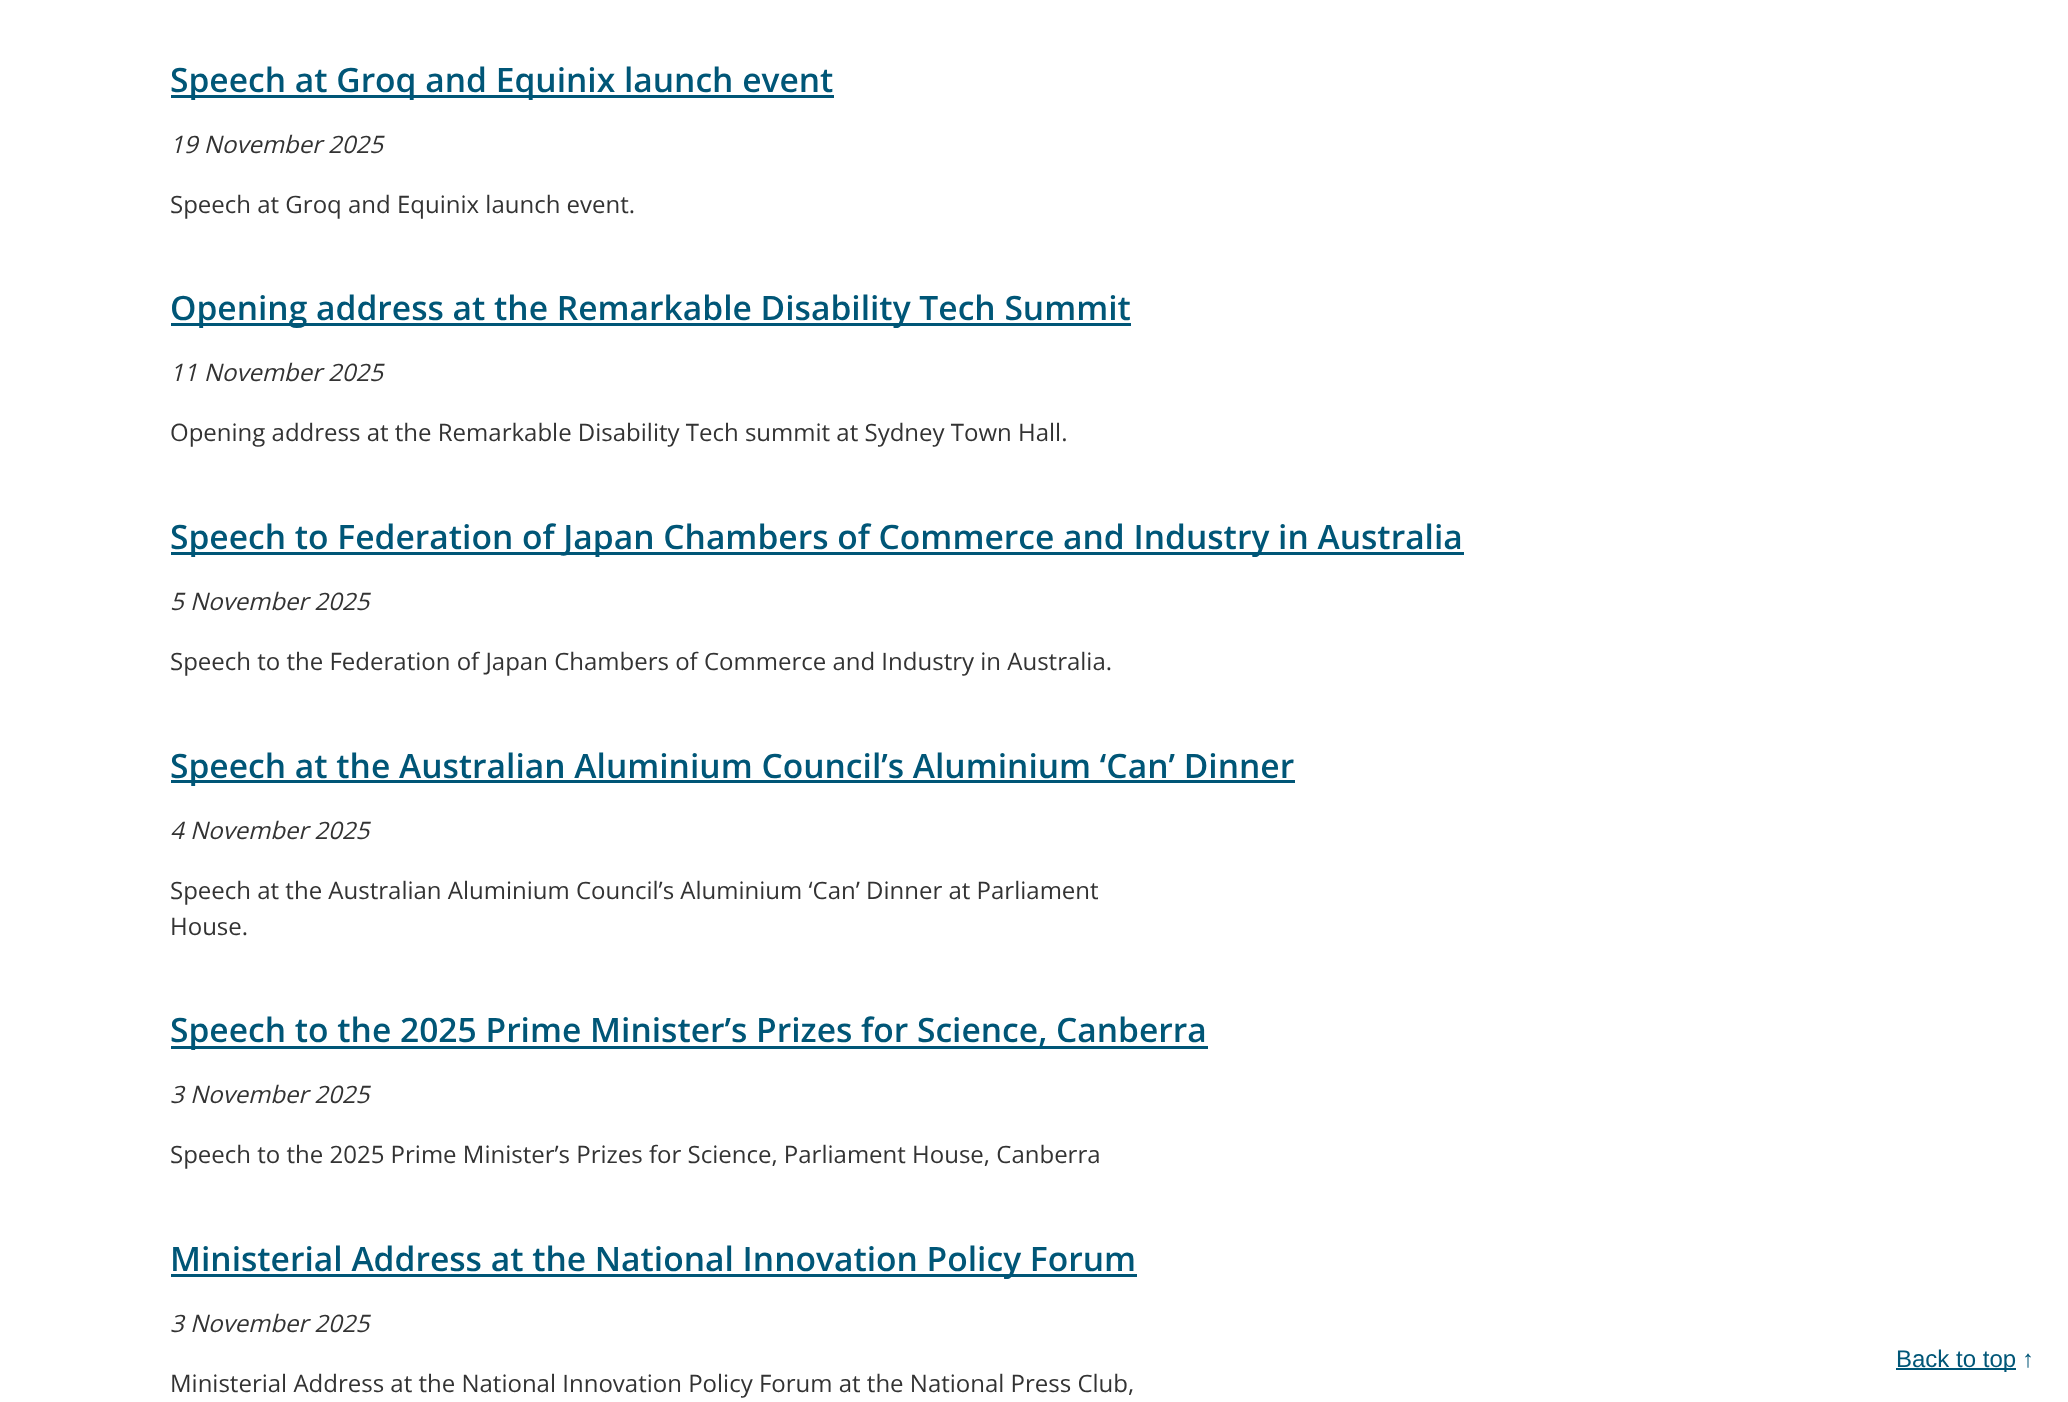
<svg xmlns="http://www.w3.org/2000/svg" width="2068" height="1402">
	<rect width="100%" height="100%" fill="#FFFFFF" />
	<rect x="171" y="95" width="663" height="3" fill="#005677" />
	<text x="170" y="92" font-family="Open Sans" font-size="33.6" font-weight="600" fill="#005677">Speech at Groq and Equinix launch event</text>
	<text x="170" y="153" font-family="Open Sans" font-size="24" font-style="italic" fill="#333333">19 November 2025</text>
	<text x="170" y="213" font-family="Open Sans" font-size="24" fill="#333333">Speech at Groq and Equinix launch event.</text>
	<rect x="171" y="323" width="960" height="3" fill="#005677" />
	<text x="170" y="320" font-family="Open Sans" font-size="33.6" font-weight="600" fill="#005677">Opening address at the Remarkable Disability Tech Summit</text>
	<text x="170" y="381" font-family="Open Sans" font-size="24" font-style="italic" fill="#333333">11 November 2025</text>
	<text x="170" y="441" font-family="Open Sans" font-size="24" fill="#333333">Opening address at the Remarkable Disability Tech summit at Sydney Town Hall.</text>
	<rect x="171" y="552" width="1293" height="3" fill="#005677" />
	<text x="170" y="549" font-family="Open Sans" font-size="33.6" font-weight="600" fill="#005677">Speech to Federation of Japan Chambers of Commerce and Industry in Australia</text>
	<text x="170" y="610" font-family="Open Sans" font-size="24" font-style="italic" fill="#333333">5 November 2025</text>
	<text x="170" y="670" font-family="Open Sans" font-size="24" fill="#333333">Speech to the Federation of Japan Chambers of Commerce and Industry in Australia.</text>
	<rect x="171" y="780" width="1124" height="3" fill="#005677" />
	<text x="170" y="778" font-family="Open Sans" font-size="33.6" font-weight="600" fill="#005677">Speech at the Australian Aluminium Council’s Aluminium ‘Can’ Dinner</text>
	<text x="170" y="839" font-family="Open Sans" font-size="24" font-style="italic" fill="#333333">4 November 2025</text>
	<g font-family="Open Sans" font-size="24" fill="#333333">
		<text x="170" y="899">Speech at the Australian Aluminium Council’s Aluminium ‘Can’ Dinner at Parliament</text>
		<text x="170" y="935">House.</text>
	</g>
	<rect x="171" y="1046" width="1037" height="3" fill="#005677" />
	<text x="170" y="1042" font-family="Open Sans" font-size="33.6" font-weight="600" fill="#005677">Speech to the 2025 Prime Minister’s Prizes for Science, Canberra</text>
	<text x="170" y="1103" font-family="Open Sans" font-size="24" font-style="italic" fill="#333333">3 November 2025</text>
	<text x="170" y="1163" font-family="Open Sans" font-size="24" fill="#333333">Speech to the 2025 Prime Minister’s Prizes for Science, Parliament House, Canberra</text>
	<rect x="171" y="1274" width="966" height="3" fill="#005677" />
	<text x="170" y="1271" font-family="Open Sans" font-size="33.6" font-weight="600" fill="#005677">Ministerial Address at the National Innovation Policy Forum</text>
	<text x="170" y="1332" font-family="Open Sans" font-size="24" font-style="italic" fill="#333333">3 November 2025</text>
	<text x="170" y="1392" font-family="Open Sans" font-size="24" fill="#333333">Ministerial Address at the National Innovation Policy Forum at the National Press Club,</text>
	<rect x="1896" y="1368" width="120" height="2" fill="#005677" />
	<g font-family="Liberation Sans" font-size="24" fill="#005677">
		<text x="1896" y="1367">Back to top</text>
		<text x="2022" y="1367">↑</text>
	</g>
</svg>
